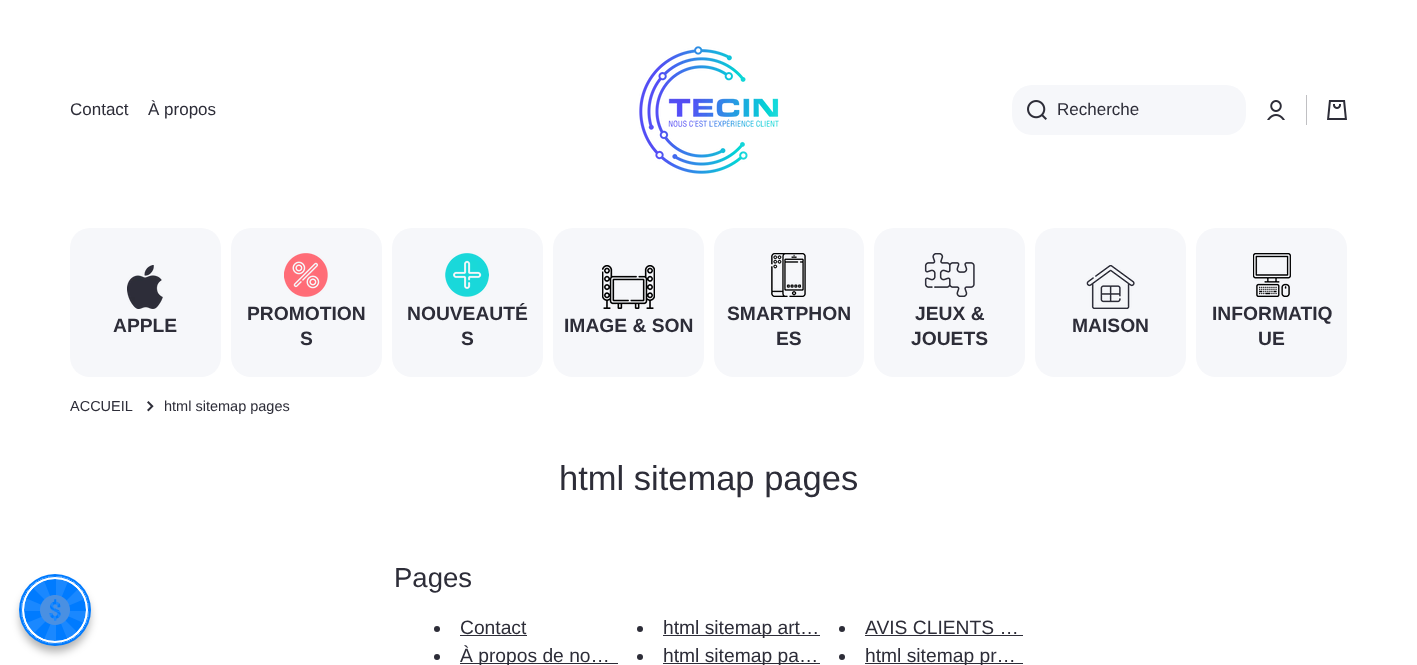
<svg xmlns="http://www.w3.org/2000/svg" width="1417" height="665">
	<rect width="100%" height="100%" fill="#FFFFFF" />
	<g font-family="Liberation Sans" font-size="17" fill="#2D2D38">
		<text x="70" y="115">Contact</text>
		<text x="148" y="115">À propos</text>
	</g>
	<image x="639" y="46" width="140" height="128" href="assets/img1.png" />
	<rect x="1012" y="85" width="234" height="50" rx="20" fill="#F6F7FA" />
	<image x="1027" y="100" width="20" height="20" href="assets/img2.png" />
	<text x="1057" y="115" font-family="Liberation Sans" font-size="17" fill="#2D2D38">Recherche</text>
	<image x="1267" y="100" width="18" height="20" href="assets/img3.png" />
	<rect x="1306" y="95" width="1" height="30" fill="#C0C0C3" />
	<image x="1327" y="100" width="20" height="20" href="assets/img4.png" />
	<rect x="70" y="228" width="151" height="149" rx="20" fill="#F6F7FA" />
	<image x="127" y="265" width="36" height="44" href="assets/img5.png" />
	<text x="113" y="332" font-family="Liberation Sans" font-size="19.25" font-weight="700" fill="#2D2D38">APPLE</text>
	<rect x="231" y="228" width="151" height="149" rx="20" fill="#F6F7FA" />
	<image x="284" y="253" width="44" height="44" href="assets/img6.png" />
	<g font-family="Liberation Sans" font-size="19.25" font-weight="700" fill="#2D2D38">
		<text x="247" y="320">PROMOTION</text>
		<text x="300" y="345">S</text>
	</g>
	<rect x="392" y="228" width="151" height="149" rx="20" fill="#F6F7FA" />
	<image x="445" y="253" width="44" height="44" href="assets/img7.png" />
	<g font-family="Liberation Sans" font-size="19.25" font-weight="700" fill="#2D2D38">
		<text x="407" y="320">NOUVEAUTÉ</text>
		<text x="461" y="345">S</text>
	</g>
	<rect x="553" y="228" width="151" height="149" rx="20" fill="#F6F7FA" />
	<image x="602" y="265" width="53" height="44" href="assets/img8.png" />
	<text x="564" y="332" font-family="Liberation Sans" font-size="19.25" font-weight="700" fill="#2D2D38">IMAGE &amp; SON</text>
	<rect x="714" y="228" width="150" height="149" rx="20" fill="#F6F7FA" />
	<image x="771" y="253" width="35" height="44" href="assets/img9.png" />
	<g font-family="Liberation Sans" font-size="19.25" font-weight="700" fill="#2D2D38">
		<text x="727" y="320">SMARTPHON</text>
		<text x="776" y="345">ES</text>
	</g>
	<rect x="874" y="228" width="151" height="149" rx="20" fill="#F6F7FA" />
	<image x="924" y="253" width="51" height="44" href="assets/img10.png" />
	<g font-family="Liberation Sans" font-size="19.25" font-weight="700" fill="#2D2D38">
		<text x="915" y="320">JEUX &amp;</text>
		<text x="911" y="345">JOUETS</text>
	</g>
	<rect x="1035" y="228" width="151" height="149" rx="20" fill="#F6F7FA" />
	<image x="1086" y="265" width="49" height="44" href="assets/img11.png" />
	<text x="1072" y="332" font-family="Liberation Sans" font-size="19.25" font-weight="700" fill="#2D2D38">MAISON</text>
	<rect x="1196" y="228" width="151" height="149" rx="20" fill="#F6F7FA" />
	<image x="1253" y="253" width="38" height="44" href="assets/img12.png" />
	<g font-family="Liberation Sans" font-size="19.25" font-weight="700" fill="#2D2D38">
		<text x="1212" y="320">INFORMATIQ</text>
		<text x="1258" y="345">UE</text>
	</g>
	<rect x="20" y="582" width="70" height="70" rx="35" fill="#000000" fill-opacity="0.3" filter="blur(4px)" />
	<rect x="19" y="574" width="72" height="72" rx="36" fill="#007BFF" filter="blur(0.5px)" />
	<circle cx="55" cy="610" r="35" fill="#007BFF" />
	<circle cx="55" cy="610" r="32.5" fill="none" stroke="#FFFFFF" stroke-width="3" />
	<circle cx="55" cy="610" r="32.5" fill="none" stroke="#FFFFFF" stroke-width="3" />
	<circle cx="55" cy="610" r="33.5" fill="none" stroke="#007BFF" />
	<circle cx="55" cy="610" r="34.5" fill="none" stroke="#007BFF" />
	<path d="M43 578C38 580 34 583 31 586L56 611L23 597C22 602 21 606 21 611H56L24 624C26 628 29 632 32 635L56 611L43 642C47 643 52 644 56 644V611L68 641C72 640 76 637 79 634L56 611L86 624C88 620 89 616 89 611H56L87 598C85 594 83 590 80 587L56 611L69 579C65 577 61 576 56 576V611Z" fill="#FFFFFF" fill-opacity="0.1" />
	<image x="40" y="595" width="30" height="30" href="assets/img13.png" />
	<text x="70" y="411" font-family="Liberation Sans" font-size="14.5" fill="#2D2D38">ACCUEIL</text>
	<image x="147" y="401" width="7" height="11" href="assets/img14.png" />
	<text x="164" y="411" font-family="Liberation Sans" font-size="14.5" fill="#2D2D38">html sitemap pages</text>
	<text x="559" y="490" font-family="Liberation Sans" font-size="34.5" fill="#2D2D38">html sitemap pages</text>
	<text x="394" y="587" font-family="Liberation Sans" font-size="27.5" fill="#2D2D38">Pages</text>
	<circle cx="437" cy="629" r="3" fill="#2D2D38" />
	<text x="460" y="634" font-family="Liberation Sans" font-size="19.25" fill="#2D2D38">Contact</text>
	<rect x="460" y="635" width="67" height="1" fill="#2D2D38" />
	<circle cx="640" cy="629" r="3" fill="#2D2D38" />
	<rect x="663" y="635" width="157" height="1" fill="#2D2D38" />
	<text x="663" y="634" font-family="Liberation Sans" font-size="19.25" fill="#2D2D38">html sitemap art…</text>
	<circle cx="842" cy="629" r="3" fill="#2D2D38" />
	<text x="865" y="634" font-family="Liberation Sans" font-size="19.25" fill="#2D2D38">AVIS CLIENTS …</text>
	<rect x="865" y="635" width="158" height="1" fill="#2D2D38" />
	<circle cx="437" cy="657" r="3" fill="#2D2D38" />
	<rect x="460" y="663" width="158" height="1" fill="#2D2D38" />
	<text x="460" y="662" font-family="Liberation Sans" font-size="19.25" fill="#2D2D38">À propos de no…</text>
	<circle cx="640" cy="657" r="3" fill="#2D2D38" />
	<rect x="663" y="663" width="157" height="1" fill="#2D2D38" />
	<text x="663" y="662" font-family="Liberation Sans" font-size="19.25" fill="#2D2D38">html sitemap pa…</text>
	<circle cx="842" cy="657" r="3" fill="#2D2D38" />
	<rect x="865" y="663" width="158" height="1" fill="#2D2D38" />
	<text x="865" y="662" font-family="Liberation Sans" font-size="19.25" fill="#2D2D38">html sitemap pr…</text>
</svg>
